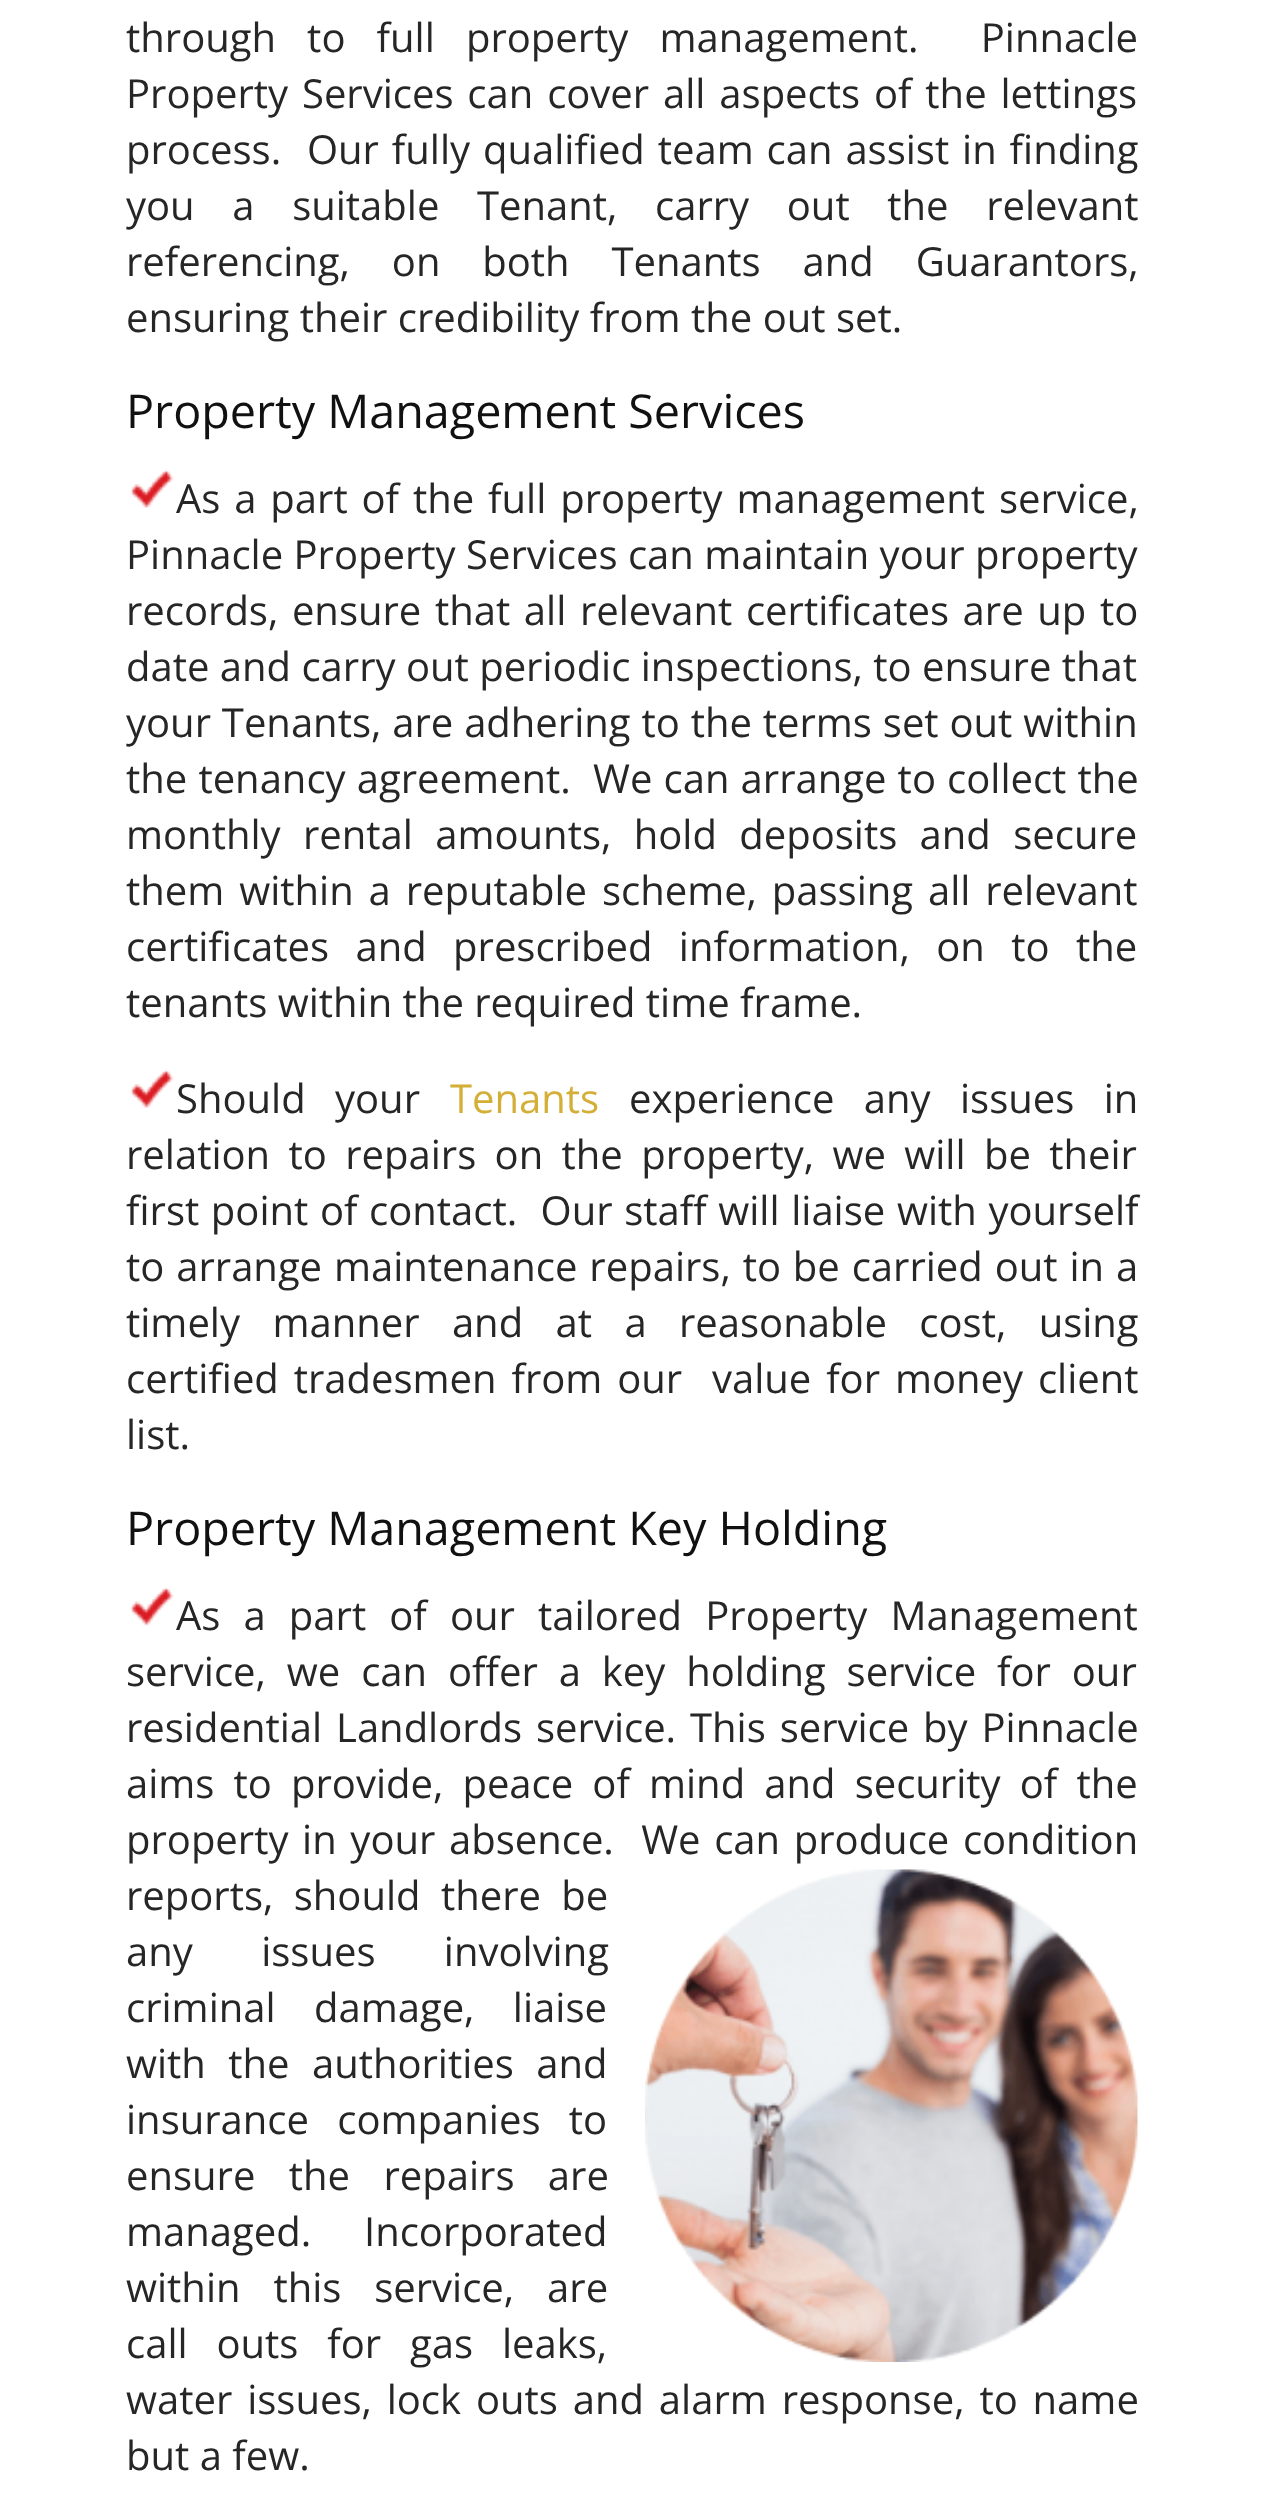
<svg xmlns="http://www.w3.org/2000/svg" width="1263" height="2516">
	<rect width="100%" height="100%" fill="#FFFFFF" />
	<g font-family="Open Sans" font-size="40" fill="#262626">
		<text x="126" y="52" word-spacing="20.75" xml:space="preserve">through to full property management.  Pinnacle</text>
		<text x="126" y="108" word-spacing="3.5">Property Services can cover all aspects of the lettings</text>
		<text x="126" y="164" word-spacing="2.5" xml:space="preserve">process.  Our fully qualified team can assist in finding</text>
		<text x="126" y="220" word-spacing="27.25">you a suitable Tenant, carry out the relevant</text>
		<text x="126" y="276" word-spacing="31.5">referencing, on both Tenants and Guarantors,</text>
		<text x="126" y="332">ensuring their credibility from the out set.</text>
	</g>
	<text x="126" y="428" font-family="Open Sans" font-size="46.7" fill="#111111">Property Management Services</text>
	<image x="130" y="469" width="44" height="39" href="assets/img1.png" />
	<g font-family="Open Sans" font-size="40" fill="#262626">
		<text x="176" y="513" word-spacing="3.5">As a part of the full property management service,</text>
		<text x="126" y="569">Pinnacle Property Services can maintain your property</text>
		<text x="126" y="625" word-spacing="3.25">records, ensure that all relevant certificates are up to</text>
		<text x="126" y="681">date and carry out periodic inspections, to ensure that</text>
		<text x="126" y="737" word-spacing="0.5">your Tenants, are adhering to the terms set out within</text>
		<text x="126" y="793" word-spacing="0.75" xml:space="preserve">the tenancy agreement.  We can arrange to collect the</text>
		<text x="126" y="849" word-spacing="12">monthly rental amounts, hold deposits and secure</text>
		<text x="126" y="905" word-spacing="4.5">them within a reputable scheme, passing all relevant</text>
		<text x="126" y="961" word-spacing="16">certificates and prescribed information, on to the</text>
		<text x="126" y="1017">tenants within the required time frame.</text>
	</g>
	<image x="130" y="1069" width="44" height="39" href="assets/img2.png" />
	<text x="176" y="1113" word-spacing="19" font-family="Open Sans" font-size="40" fill="#262626">Should your</text>
	<text x="450" y="1113" font-family="Open Sans" font-size="40" fill="#D4AF37">Tenants</text>
	<g font-family="Open Sans" font-size="40" fill="#262626">
		<text x="629" y="1113" word-spacing="19">experience any issues in</text>
		<text x="126" y="1169" word-spacing="8">relation to repairs on the property, we will be their</text>
		<text x="126" y="1225" word-spacing="1.25" xml:space="preserve">first point of contact.  Our staff will liaise with yourself</text>
		<text x="126" y="1281" word-spacing="1.5">to arrange maintenance repairs, to be carried out in a</text>
		<text x="126" y="1337" word-spacing="22">timely manner and at a reasonable cost, using</text>
		<text x="126" y="1393" word-spacing="4.5" xml:space="preserve">certified tradesmen from our  value for money client</text>
		<text x="126" y="1449">list.</text>
	</g>
	<text x="126" y="1545" font-family="Open Sans" font-size="46.7" fill="#111111">Property Management Key Holding</text>
	<image x="130" y="1587" width="44" height="39" href="assets/img3.png" />
	<g font-family="Open Sans" font-size="40" fill="#262626">
		<text x="176" y="1630" word-spacing="12.75">As a part of our tailored Property Management</text>
		<text x="126" y="1686" word-spacing="10.5">service, we can offer a key holding service for our</text>
		<text x="126" y="1742" word-spacing="3.5">residential Landlords service. This service by Pinnacle</text>
		<text x="126" y="1798" word-spacing="8.75">aims to provide, peace of mind and security of the</text>
		<text x="126" y="1854" word-spacing="3.25" xml:space="preserve">property in your absence.  We can produce condition</text>
		<text x="126" y="1910" word-spacing="10">reports, should there be</text>
	</g>
	<image x="645" y="1869" width="493" height="493" href="assets/img4.png" />
	<g font-family="Open Sans" font-size="40" fill="#262626">
		<text x="126" y="1966" word-spacing="58">any issues involving</text>
		<text x="126" y="2022" word-spacing="28">criminal damage, liaise</text>
		<text x="126" y="2078" word-spacing="12">with the authorities and</text>
		<text x="126" y="2134" word-spacing="18">insurance companies to</text>
		<text x="126" y="2190" word-spacing="23">ensure the repairs are</text>
		<text x="126" y="2246" word-spacing="16" xml:space="preserve">managed.  Incorporated</text>
		<text x="126" y="2302" word-spacing="22.5">within this service, are</text>
		<text x="126" y="2358" word-spacing="18.5">call outs for gas leaks,</text>
		<text x="126" y="2414" word-spacing="4.5">water issues, lock outs and alarm response, to name</text>
		<text x="126" y="2470">but a few.</text>
	</g>
</svg>
